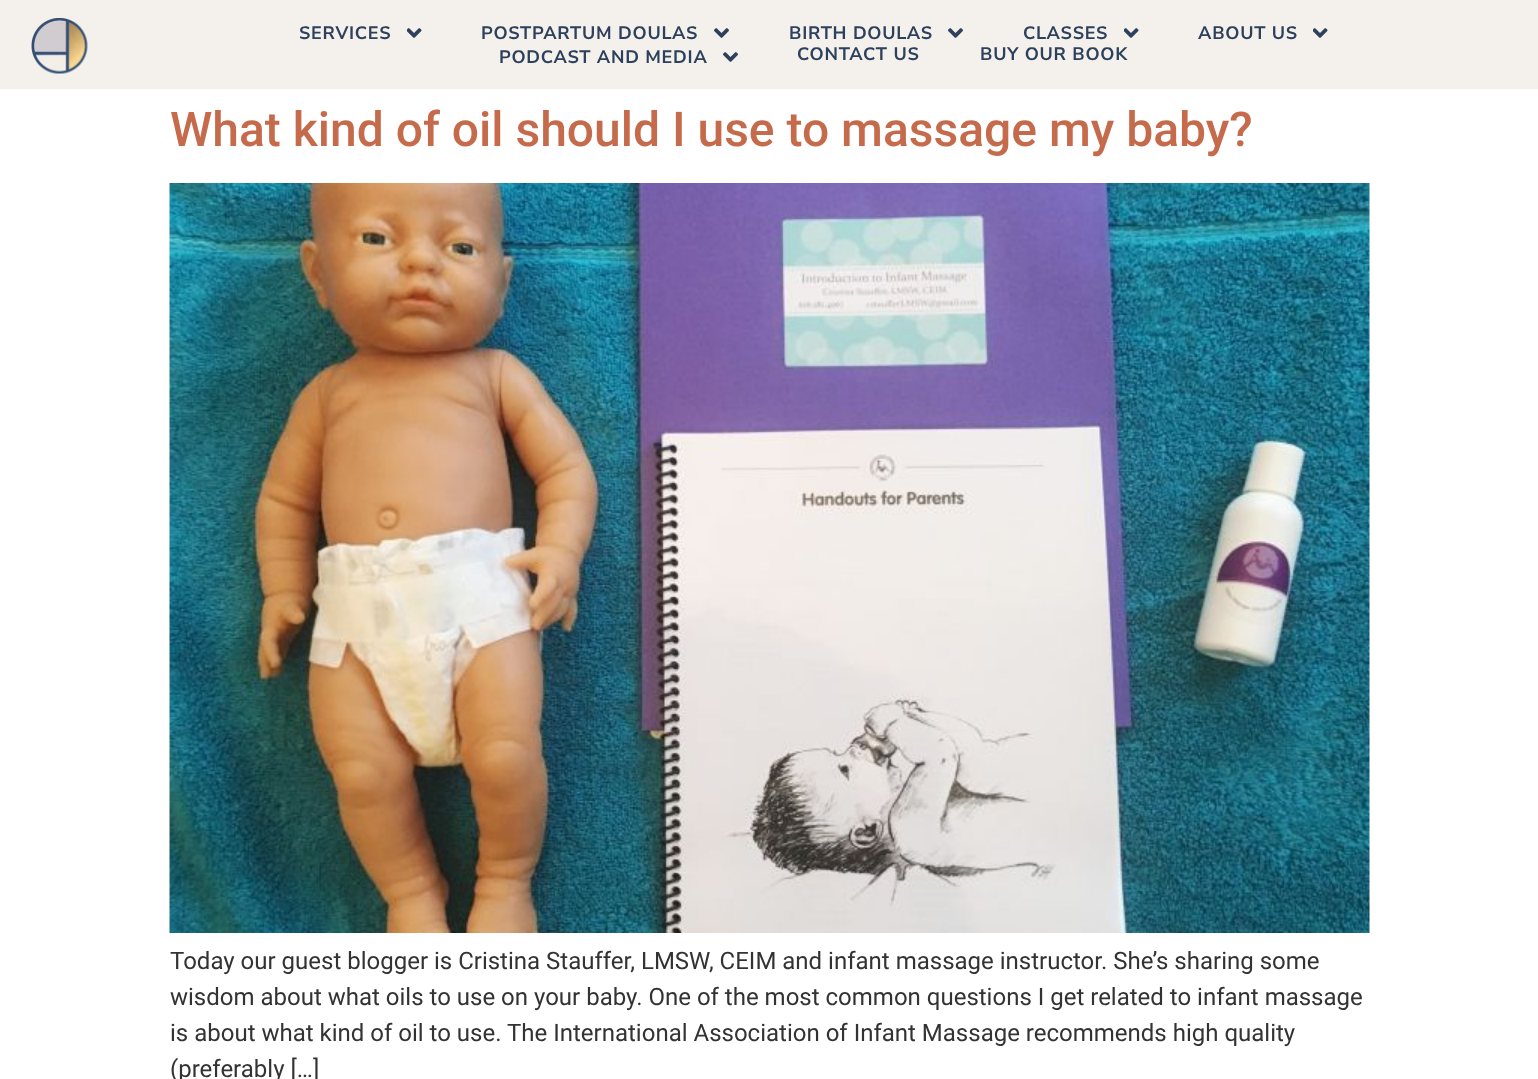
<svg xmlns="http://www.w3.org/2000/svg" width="1538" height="1079">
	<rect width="100%" height="100%" fill="#FFFFFF" />
	<rect x="0" y="0" width="1538" height="89" fill="#F4F0EB" />
	<image x="31" y="17" width="57" height="57" href="assets/img1.png" />
	<text x="299" y="39" font-family="Nunito Sans" font-size="18" font-weight="700" letter-spacing="0.75" fill="#2D405C">SERVICES</text>
	<image x="407" y="28" width="15" height="10" href="assets/img2.png" />
	<text x="481" y="39" font-family="Nunito Sans" font-size="18" font-weight="700" letter-spacing="0.75" fill="#2D405C">POSTPARTUM DOULAS</text>
	<image x="714" y="28" width="15" height="10" href="assets/img3.png" />
	<text x="789" y="39" font-family="Nunito Sans" font-size="18" font-weight="700" letter-spacing="0.75" fill="#2D405C">BIRTH DOULAS</text>
	<image x="948" y="28" width="15" height="10" href="assets/img3.png" />
	<text x="1023" y="39" font-family="Nunito Sans" font-size="18" font-weight="700" letter-spacing="0.75" fill="#2D405C">CLASSES</text>
	<image x="1124" y="28" width="15" height="10" href="assets/img2.png" />
	<text x="1198" y="39" font-family="Nunito Sans" font-size="18" font-weight="700" letter-spacing="0.75" fill="#2D405C">ABOUT US</text>
	<image x="1313" y="28" width="15" height="10" href="assets/img2.png" />
	<text x="499" y="63" font-family="Nunito Sans" font-size="18" font-weight="700" letter-spacing="0.75" fill="#2D405C">PODCAST AND MEDIA</text>
	<image x="723" y="52" width="15" height="10" href="assets/img3.png" />
	<g font-family="Nunito Sans" font-size="18" font-weight="700" letter-spacing="0.75" fill="#2D405C">
		<text x="797" y="60">CONTACT US</text>
		<text x="980" y="60">BUY OUR BOOK</text>
	</g>
	<text x="170" y="146" font-family="Roboto" font-size="48" font-weight="500" fill="#C66A4C">What kind of oil should I use to massage my baby?</text>
	<image x="169" y="183" width="1201" height="750" href="assets/img4.png" />
	<g font-family="Roboto" font-size="24" fill="#333333">
		<text x="170" y="969">Today our guest blogger is Cristina Stauffer, LMSW, CEIM and infant massage instructor. She’s sharing some</text>
		<text x="170" y="1005">wisdom about what oils to use on your baby. One of the most common questions I get related to infant massage</text>
		<text x="170" y="1041">is about what kind of oil to use. The International Association of Infant Massage recommends high quality</text>
		<text x="170" y="1077">(preferably […]</text>
	</g>
</svg>
